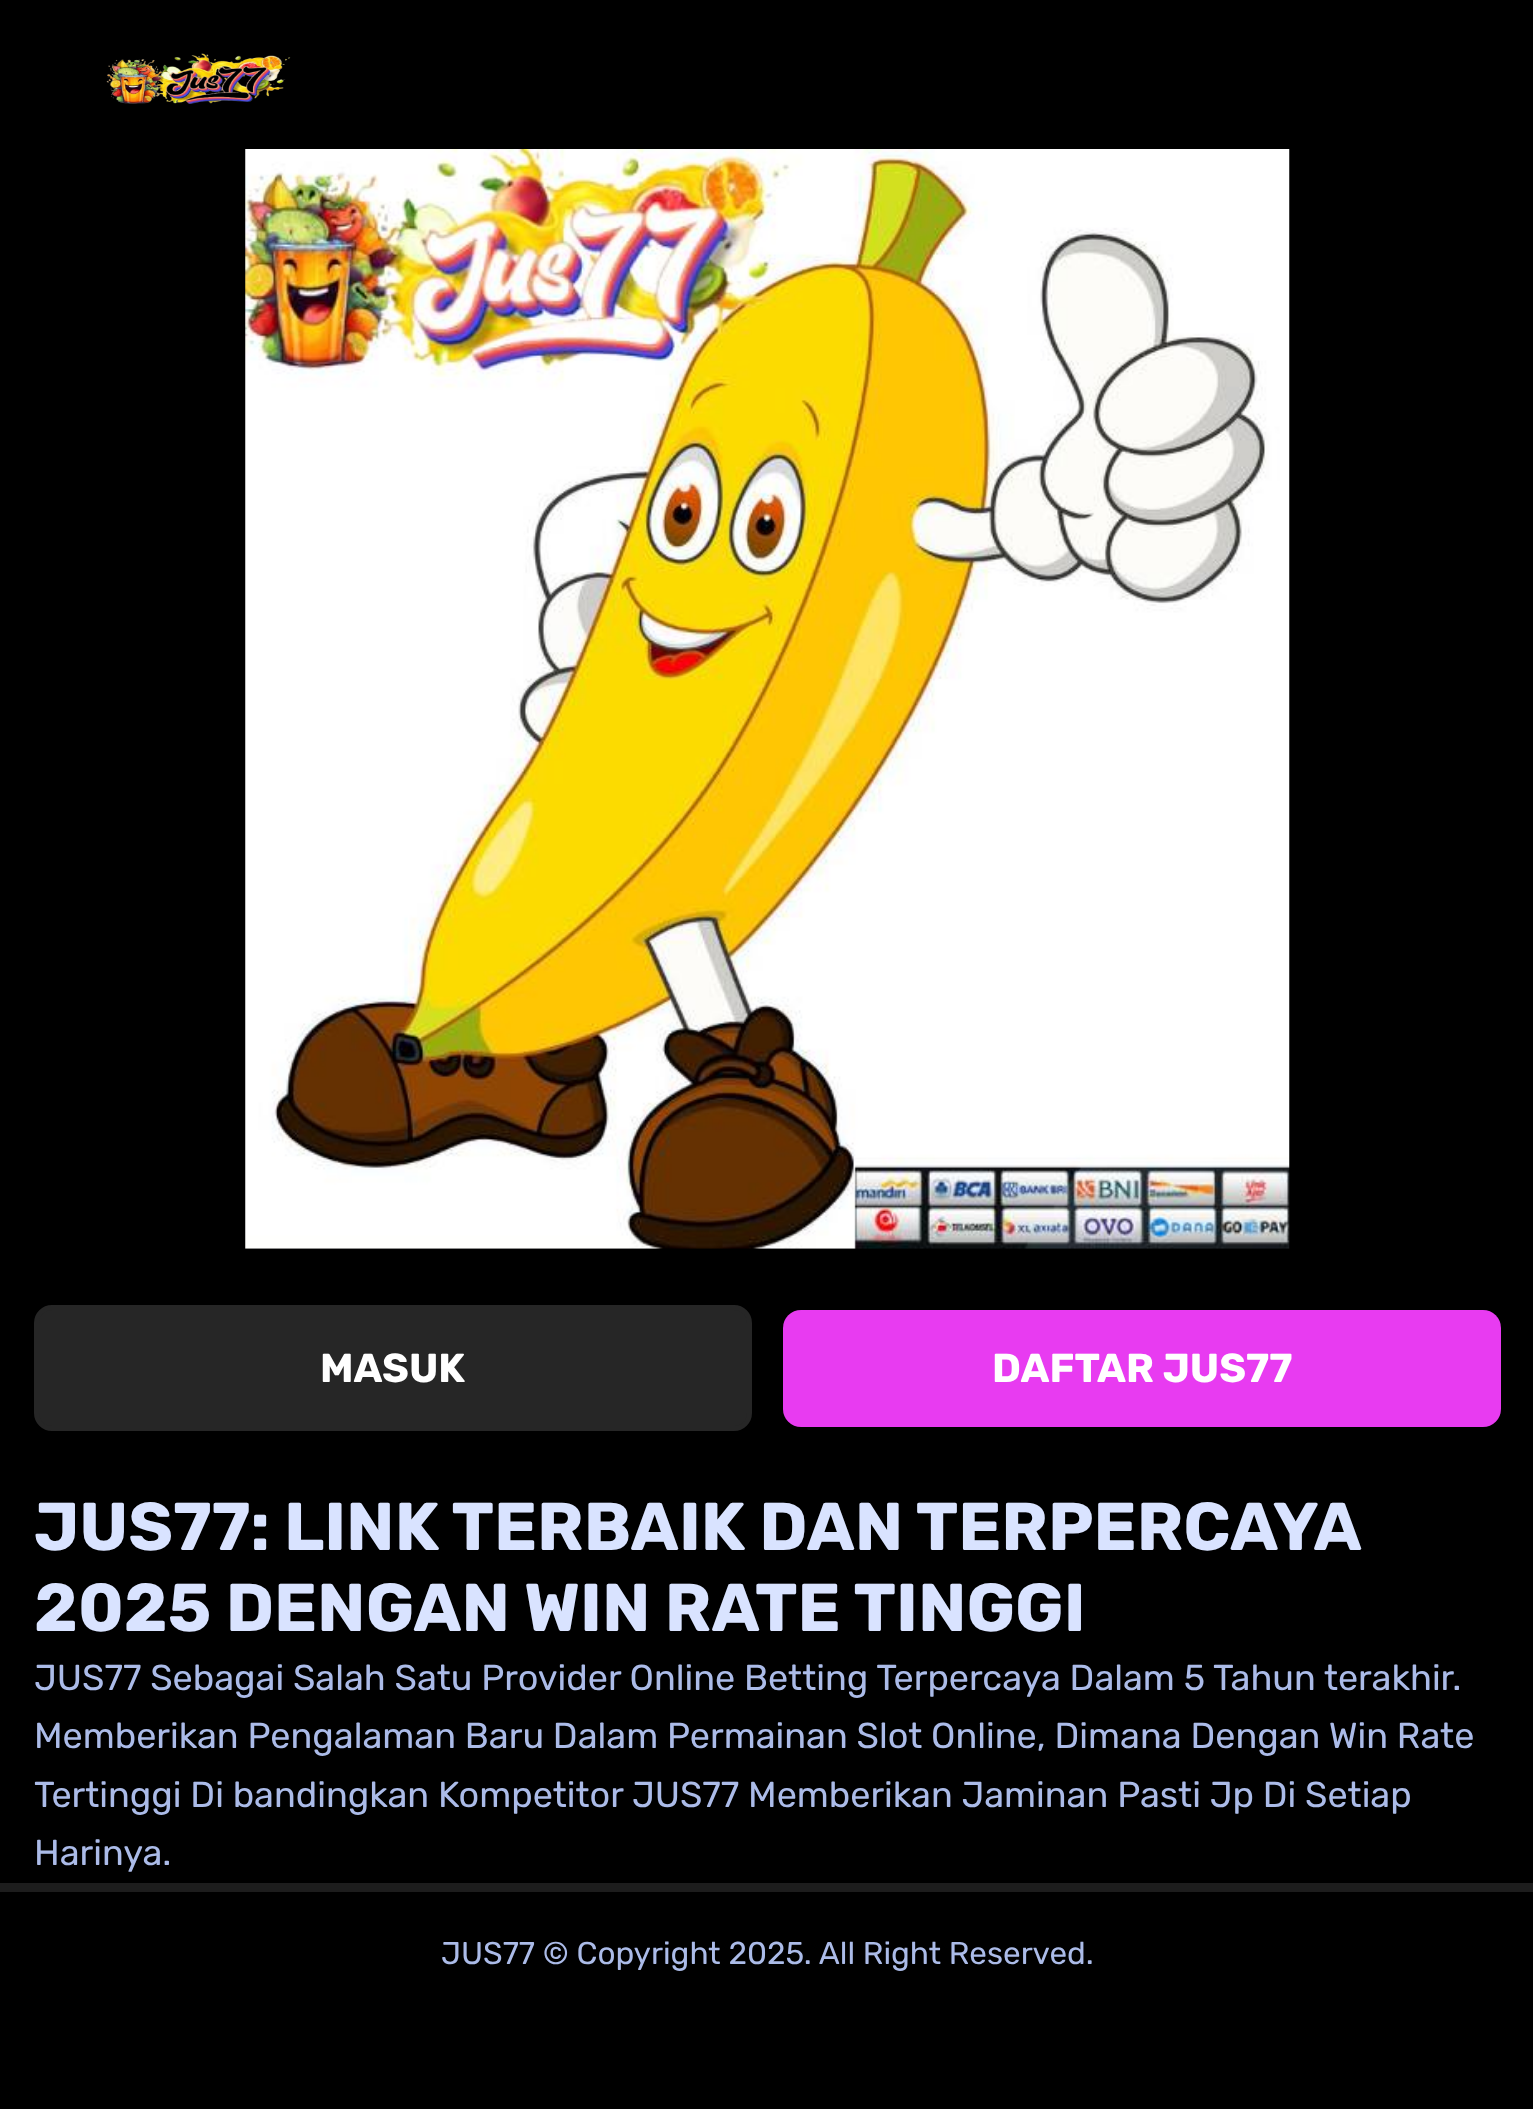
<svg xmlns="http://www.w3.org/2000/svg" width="1533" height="2109">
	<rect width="100%" height="100%" fill="#000000" />
	<image x="106" y="53" width="185" height="51" href="assets/img1.png" />
	<image x="245" y="149" width="1045" height="1100" href="assets/img2.png" />
	<rect x="36.5" y="1307.5" width="713" height="121" rx="15.5" fill="#262626" stroke="#262626" stroke-width="5" />
	<text x="320" y="1382" font-family="Rubik" font-size="40.5" font-weight="700" fill="#FFFFFF">MASUK</text>
	<rect x="783" y="1310" width="718" height="117" rx="18" fill="#E83BF1" />
	<text x="992" y="1382" font-family="Rubik" font-size="40.5" font-weight="700" fill="#FFFFFF">DAFTAR JUS77</text>
	<g font-family="Rubik" font-size="67.5" font-weight="700" fill="#D9E3FF">
		<text x="34" y="1550" word-spacing="-0.5">JUS77: LINK TERBAIK DAN TERPERCAYA</text>
		<text x="34" y="1631">2025 DENGAN WIN RATE TINGGI</text>
	</g>
	<g font-family="Rubik" font-size="36" fill="#ABBBE8">
		<text x="34" y="1690">JUS77 Sebagai Salah Satu Provider Online Betting Terpercaya Dalam 5 Tahun terakhir.</text>
		<text x="34" y="1748">Memberikan Pengalaman Baru Dalam Permainan Slot Online, Dimana Dengan Win Rate</text>
		<text x="34" y="1807">Tertinggi Di bandingkan Kompetitor JUS77 Memberikan Jaminan Pasti Jp Di Setiap</text>
		<text x="34" y="1865">Harinya.</text>
	</g>
	<rect x="0" y="1883" width="1533" height="9" fill="#1D1D1D" />
	<text x="441" y="1964" font-family="Rubik" font-size="31.5" fill="#ABBBE8">JUS77 © Copyright 2025. All Right Reserved.</text>
</svg>
